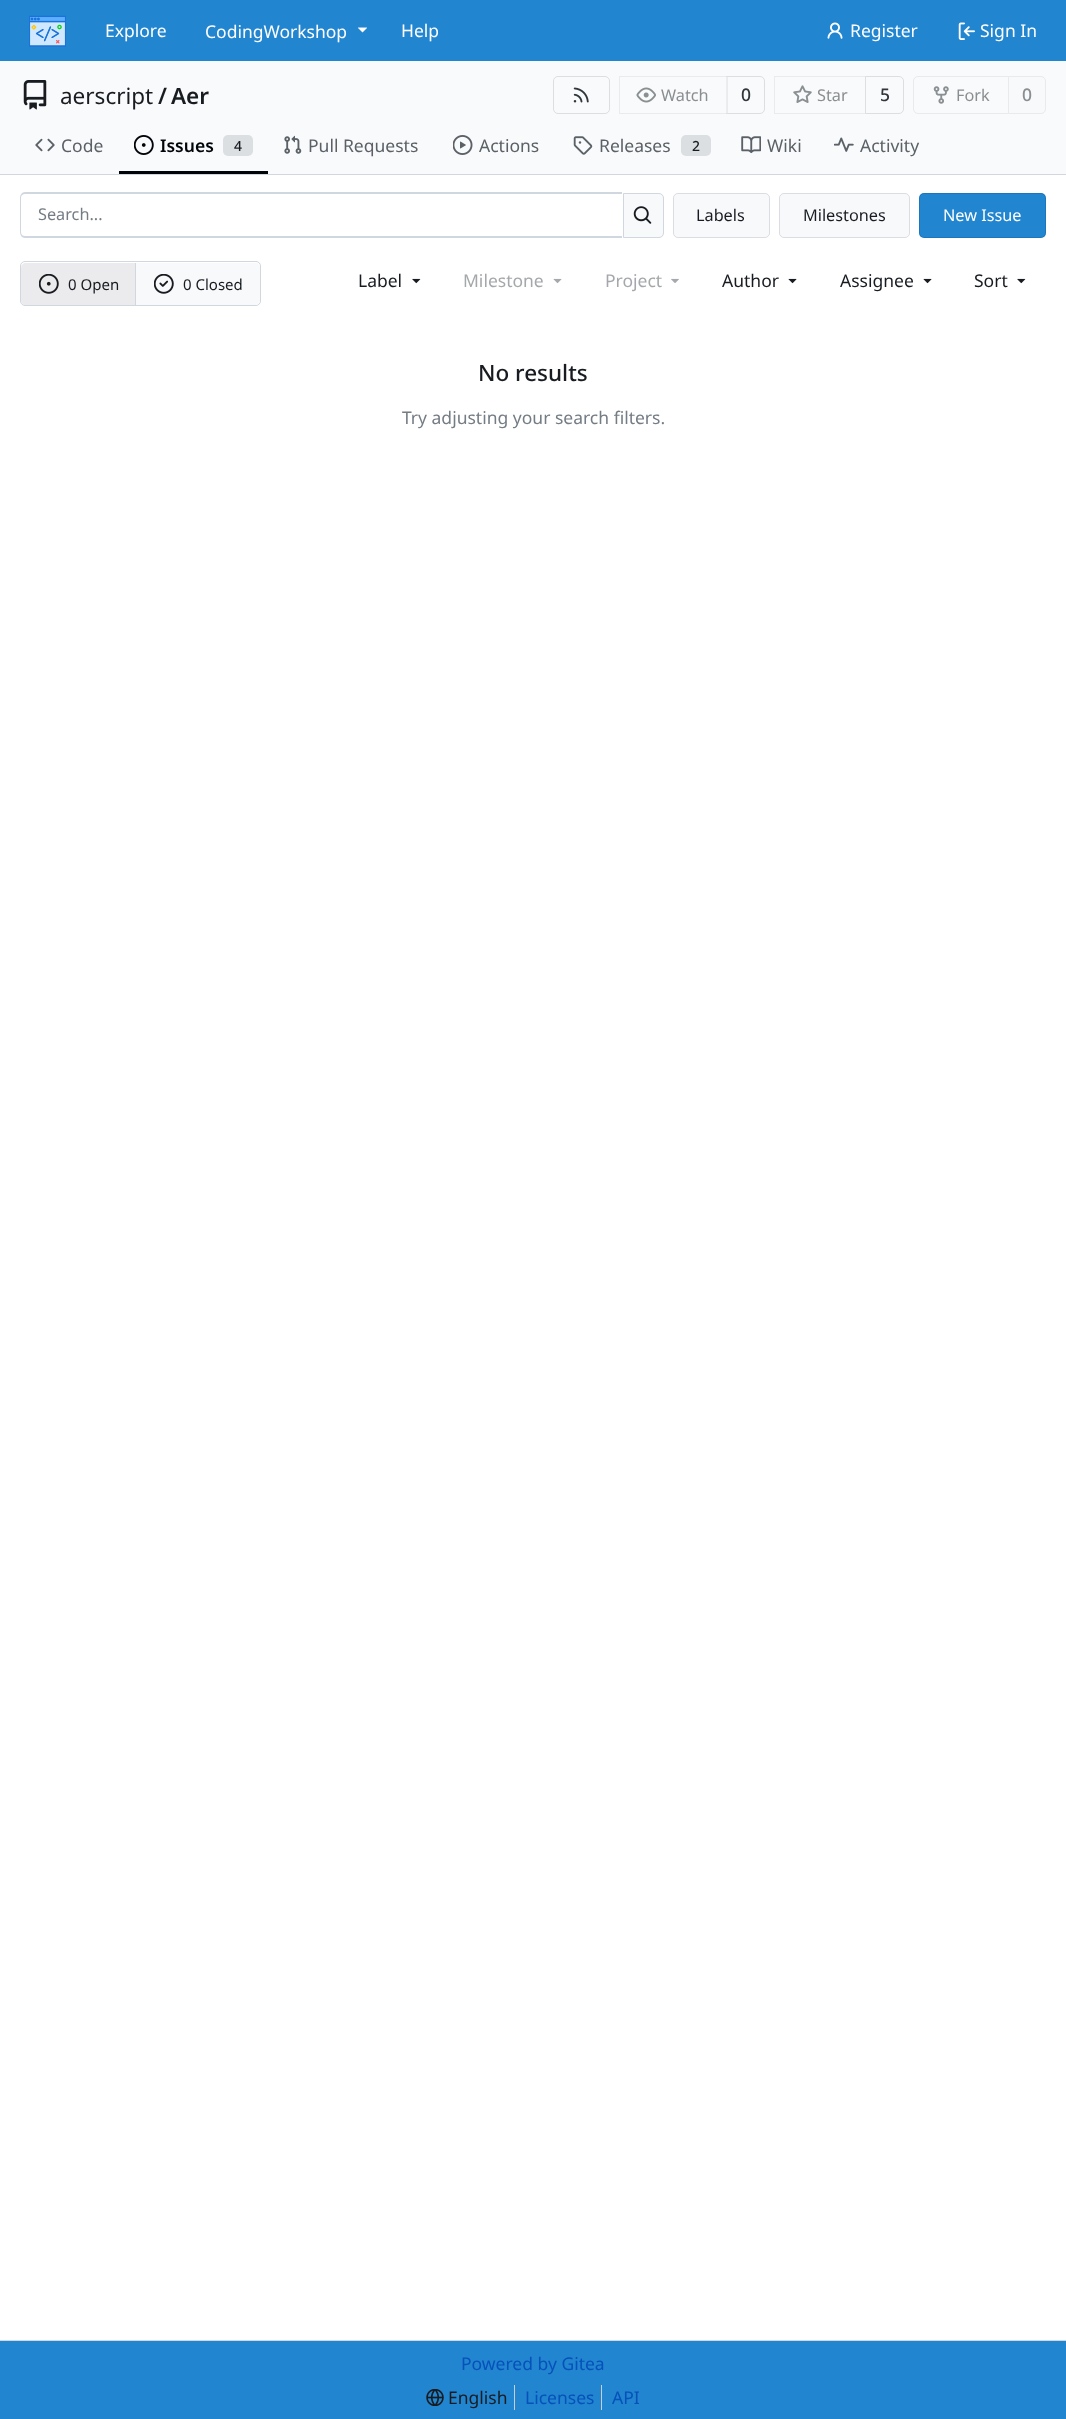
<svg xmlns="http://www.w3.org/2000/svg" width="1066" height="2419">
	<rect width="100%" height="100%" fill="#FFFFFF" />
	<rect x="0" y="0" width="1066" height="61" fill="#2185D0" />
	<image x="29" y="15" width="37" height="32" href="assets/img1.png" />
	<g font-family="Noto Sans" font-size="17.5" fill="#FFFFFF">
		<text x="105" y="37">Explore</text>
		<text x="205" y="38">CodingWorkshop</text>
	</g>
	<image x="358" y="27" width="9" height="6" href="assets/img2.png" />
	<text x="401" y="37" font-family="Noto Sans" font-size="17.5" fill="#FFFFFF">Help</text>
	<image x="827" y="22" width="16" height="17" href="assets/img3.png" />
	<text x="850" y="37" font-family="Noto Sans" font-size="17.5" fill="#FFFFFF">Register</text>
	<image x="958" y="22" width="17" height="18" href="assets/img4.png" />
	<text x="980" y="37" font-family="Noto Sans" font-size="17.5" fill="#FFFFFF">Sign In</text>
	<rect x="0" y="61" width="1066" height="113" fill="#F9FAFB" />
	<image x="23" y="80" width="24" height="30" href="assets/img5.png" />
	<text x="60" y="104" font-family="Noto Sans" font-size="22.5" fill="#181C21">aerscript</text>
	<g font-family="Noto Sans" font-size="22.5" font-weight="600" fill="#181C21">
		<text x="158" y="104">/</text>
		<text x="171" y="104">Aer</text>
	</g>
	<rect x="553.5" y="76.5" width="56" height="37" rx="4.5" fill="none" stroke="#DDDEE1" />
	<image x="573" y="87" width="16" height="16" href="assets/img6.png" />
	<path d="M726.5 76.5H760C762.5 76.5 764.5 78.5 764.5 81V109C764.5 111.5 762.5 113.5 760 113.5H726.5Z" fill="none" stroke="#DDDEE1" />
	<path d="M624 76H728V114H624C621 114 619 112 619 109V81C619 78 621 76 624 76Z" fill="#F8F9FB" fill-opacity="0.55" />
	<rect x="619.5" y="76.5" width="108" height="37" fill="none" stroke="#000017" stroke-opacity="0.06" />
	<image x="636" y="87" width="20" height="16" href="assets/img7.png" />
	<text x="661" y="101" font-family="Noto Sans" font-size="16.25" fill="#8A8E91">Watch</text>
	<text x="741" y="101" font-family="Noto Sans" font-size="17.5" font-weight="500" fill="#30363B">0</text>
	<path d="M865.5 76.5H899C901.5 76.5 903.5 78.5 903.5 81V109C903.5 111.5 901.5 113.5 899 113.5H865.5Z" fill="none" stroke="#DDDEE1" />
	<path d="M779 76H866V114H779C776 114 774 112 774 109V81C774 78 776 76 779 76Z" fill="#F8F9FB" fill-opacity="0.55" />
	<rect x="774.5" y="76.5" width="91" height="37" fill="none" stroke="#000017" stroke-opacity="0.06" />
	<image x="793" y="85" width="19" height="18" href="assets/img8.png" />
	<text x="817" y="101" font-family="Noto Sans" font-size="16.25" fill="#8A8E91">Star</text>
	<text x="880" y="101" font-family="Noto Sans" font-size="17.5" font-weight="500" fill="#30363B">5</text>
	<path d="M918 76.5H1008.5V113.5H918C915.5 113.5 913.5 111.5 913.5 109V81C913.5 78.5 915.5 76.5 918 76.5Z" fill="none" stroke="#E9EAED" />
	<image x="933" y="86" width="16" height="18" href="assets/img9.png" />
	<text x="956" y="101" font-family="Noto Sans" font-size="16.25" fill="#8A8E91">Fork</text>
	<path d="M1008.5 76.5H1041C1043.5 76.5 1045.5 78.5 1045.5 81V109C1045.5 111.5 1043.5 113.5 1041 113.5H1008.5Z" fill="#F8F9FB" stroke="#E9EAED" />
	<text x="1022" y="101" font-family="Noto Sans" font-size="17.5" font-weight="500" fill="#8A8E91">0</text>
	<image x="35" y="138" width="20" height="14" href="assets/img10.png" />
	<text x="61" y="152" font-family="Noto Sans" font-size="17.5" fill="#5B6167">Code</text>
	<rect x="119" y="171" width="149" height="3" fill="#01050A" />
	<image x="134" y="135" width="20" height="20" href="assets/img11.png" />
	<text x="160" y="152" font-family="Noto Sans" font-size="17.5" font-weight="600" fill="#01050A">Issues</text>
	<rect x="223" y="135" width="30" height="21" rx="5" fill="#DBDFE2" />
	<text x="234" y="151" font-family="Noto Sans" font-size="14" font-weight="500" fill="#181C21">4</text>
	<image x="284" y="135" width="18" height="19" href="assets/img12.png" />
	<text x="308" y="152" font-family="Noto Sans" font-size="17.5" fill="#5B6167">Pull Requests</text>
	<image x="453" y="135" width="20" height="20" href="assets/img13.png" />
	<text x="479" y="152" font-family="Noto Sans" font-size="17.5" fill="#5B6167">Actions</text>
	<image x="573" y="136" width="20" height="19" href="assets/img14.png" />
	<text x="599" y="152" font-family="Noto Sans" font-size="17.5" fill="#5B6167">Releases</text>
	<rect x="681" y="135" width="30" height="21" rx="5" fill="#DBDFE2" />
	<text x="692" y="151" font-family="Noto Sans" font-size="14" font-weight="500" fill="#181C21">2</text>
	<image x="741" y="136" width="20" height="18" href="assets/img15.png" />
	<text x="767" y="152" font-family="Noto Sans" font-size="17.5" fill="#5B6167">Wiki</text>
	<image x="834" y="137" width="20" height="15" href="assets/img16.png" />
	<text x="860" y="152" font-family="Noto Sans" font-size="17.5" fill="#5B6167">Activity</text>
	<rect x="0" y="174" width="1066" height="1" fill="#D0D7DE" />
	<path d="M25 192H622V238H25C22 238 20 235 20 232V198C20 195 22 192 25 192ZM25 194H622V236H25C23 236 21 235 21 232V198C21 195 23 194 25 194Z" fill="#D0D7DE" fill-rule="evenodd" />
	<text x="38" y="220" font-family="Noto Sans" font-size="16.25" fill="#747C84">Search...</text>
	<path d="M623.5 193.5H659C661.5 193.5 663.5 195.5 663.5 198V233C663.5 235.5 661.5 237.5 659 237.5H623.5Z" fill="#F8F9FB" stroke="#D0D7DE" />
	<image x="633" y="206" width="19" height="18" href="assets/img17.png" />
	<rect x="673" y="193" width="97" height="45" rx="5" fill="#F8F9FB" />
	<rect x="673.5" y="193.5" width="96" height="44" rx="4.5" fill="none" stroke="#000017" stroke-opacity="0.11" />
	<text x="696" y="221" font-family="Noto Sans" font-size="16.25" fill="#181C21">Labels</text>
	<rect x="779" y="193" width="131" height="45" rx="5" fill="#F8F9FB" />
	<rect x="779.5" y="193.5" width="130" height="44" rx="4.5" fill="none" stroke="#000017" stroke-opacity="0.11" />
	<text x="803" y="221" font-family="Noto Sans" font-size="16.25" fill="#181C21">Milestones</text>
	<rect x="919" y="193" width="127" height="45" rx="5" fill="#2185D0" />
	<rect x="919.5" y="193.5" width="126" height="44" rx="4.5" fill="none" stroke="#000017" stroke-opacity="0.11" />
	<text x="943" y="221" font-family="Noto Sans" font-size="16.25" fill="#FFFFFF">New Issue</text>
	<rect x="20.5" y="261.5" width="240" height="44" rx="4.5" fill="none" stroke="#D0D7DE" />
	<path d="M26 263H136V305H26C23 305 21 303 21 300V268C21 265 23 263 26 263Z" fill="#000017" fill-opacity="0.08" />
	<image x="39" y="274" width="20" height="20" href="assets/img18.png" />
	<text x="68" y="290" font-family="Noto Sans" font-size="15" fill="#181C21">0 Open</text>
	<rect x="135" y="263" width="1" height="42" fill="#D0D7DE" />
	<path d="M136 263H255C258 263 260 265 260 268V300C260 303 258 305 255 305H136Z" fill="#F8F9FB" />
	<image x="154" y="274" width="20" height="20" href="assets/img19.png" />
	<text x="183" y="290" font-family="Noto Sans" font-size="15" fill="#181C21">0 Closed</text>
	<text x="358" y="287" font-family="Noto Sans" font-size="17.5" fill="#181C21">Label</text>
	<image x="412" y="278" width="9" height="6" href="assets/img20.png" />
	<text x="463" y="287" font-family="Noto Sans" font-size="17.5" fill="#A5A8AB">Milestone</text>
	<image x="553" y="278" width="9" height="6" href="assets/img21.png" />
	<text x="605" y="287" font-family="Noto Sans" font-size="17.5" fill="#A5A8AB">Project</text>
	<image x="671" y="278" width="8" height="5" href="assets/img22.png" />
	<text x="722" y="287" font-family="Noto Sans" font-size="17.5" fill="#181C21">Author</text>
	<image x="788" y="278" width="9" height="6" href="assets/img23.png" />
	<text x="840" y="287" font-family="Noto Sans" font-size="17.5" fill="#181C21">Assignee</text>
	<image x="923" y="278" width="9" height="6" href="assets/img23.png" />
	<text x="974" y="287" font-family="Noto Sans" font-size="17.5" fill="#181C21">Sort</text>
	<image x="1017" y="278" width="9" height="6" href="assets/img20.png" />
	<text x="478" y="381" font-family="Noto Sans" font-size="22.5" font-weight="500" fill="#181C21">No results</text>
	<text x="402" y="424" font-family="Noto Sans" font-size="17.5" fill="#747C84">Try adjusting your search filters.</text>
	<rect x="0" y="2341" width="1066" height="78" fill="#2185D0" />
	<rect x="0" y="2340" width="1066" height="1" fill="#D0D7DE" />
	<text x="461" y="2370" font-family="Noto Sans" font-size="17.5" fill="#0651BA">Powered by Gitea</text>
	<image x="426" y="2389" width="18" height="17" href="assets/img24.png" />
	<text x="448" y="2404" font-family="Noto Sans" font-size="17.5" fill="#181C21">English</text>
	<rect x="514" y="2385" width="1" height="25" fill="#C7CED5" />
	<text x="525" y="2404" font-family="Noto Sans" font-size="17.5" fill="#0651BA">Licenses</text>
	<rect x="601" y="2385" width="1" height="25" fill="#C7CED5" />
	<text x="612" y="2404" font-family="Noto Sans" font-size="17.5" fill="#0651BA">API</text>
</svg>
